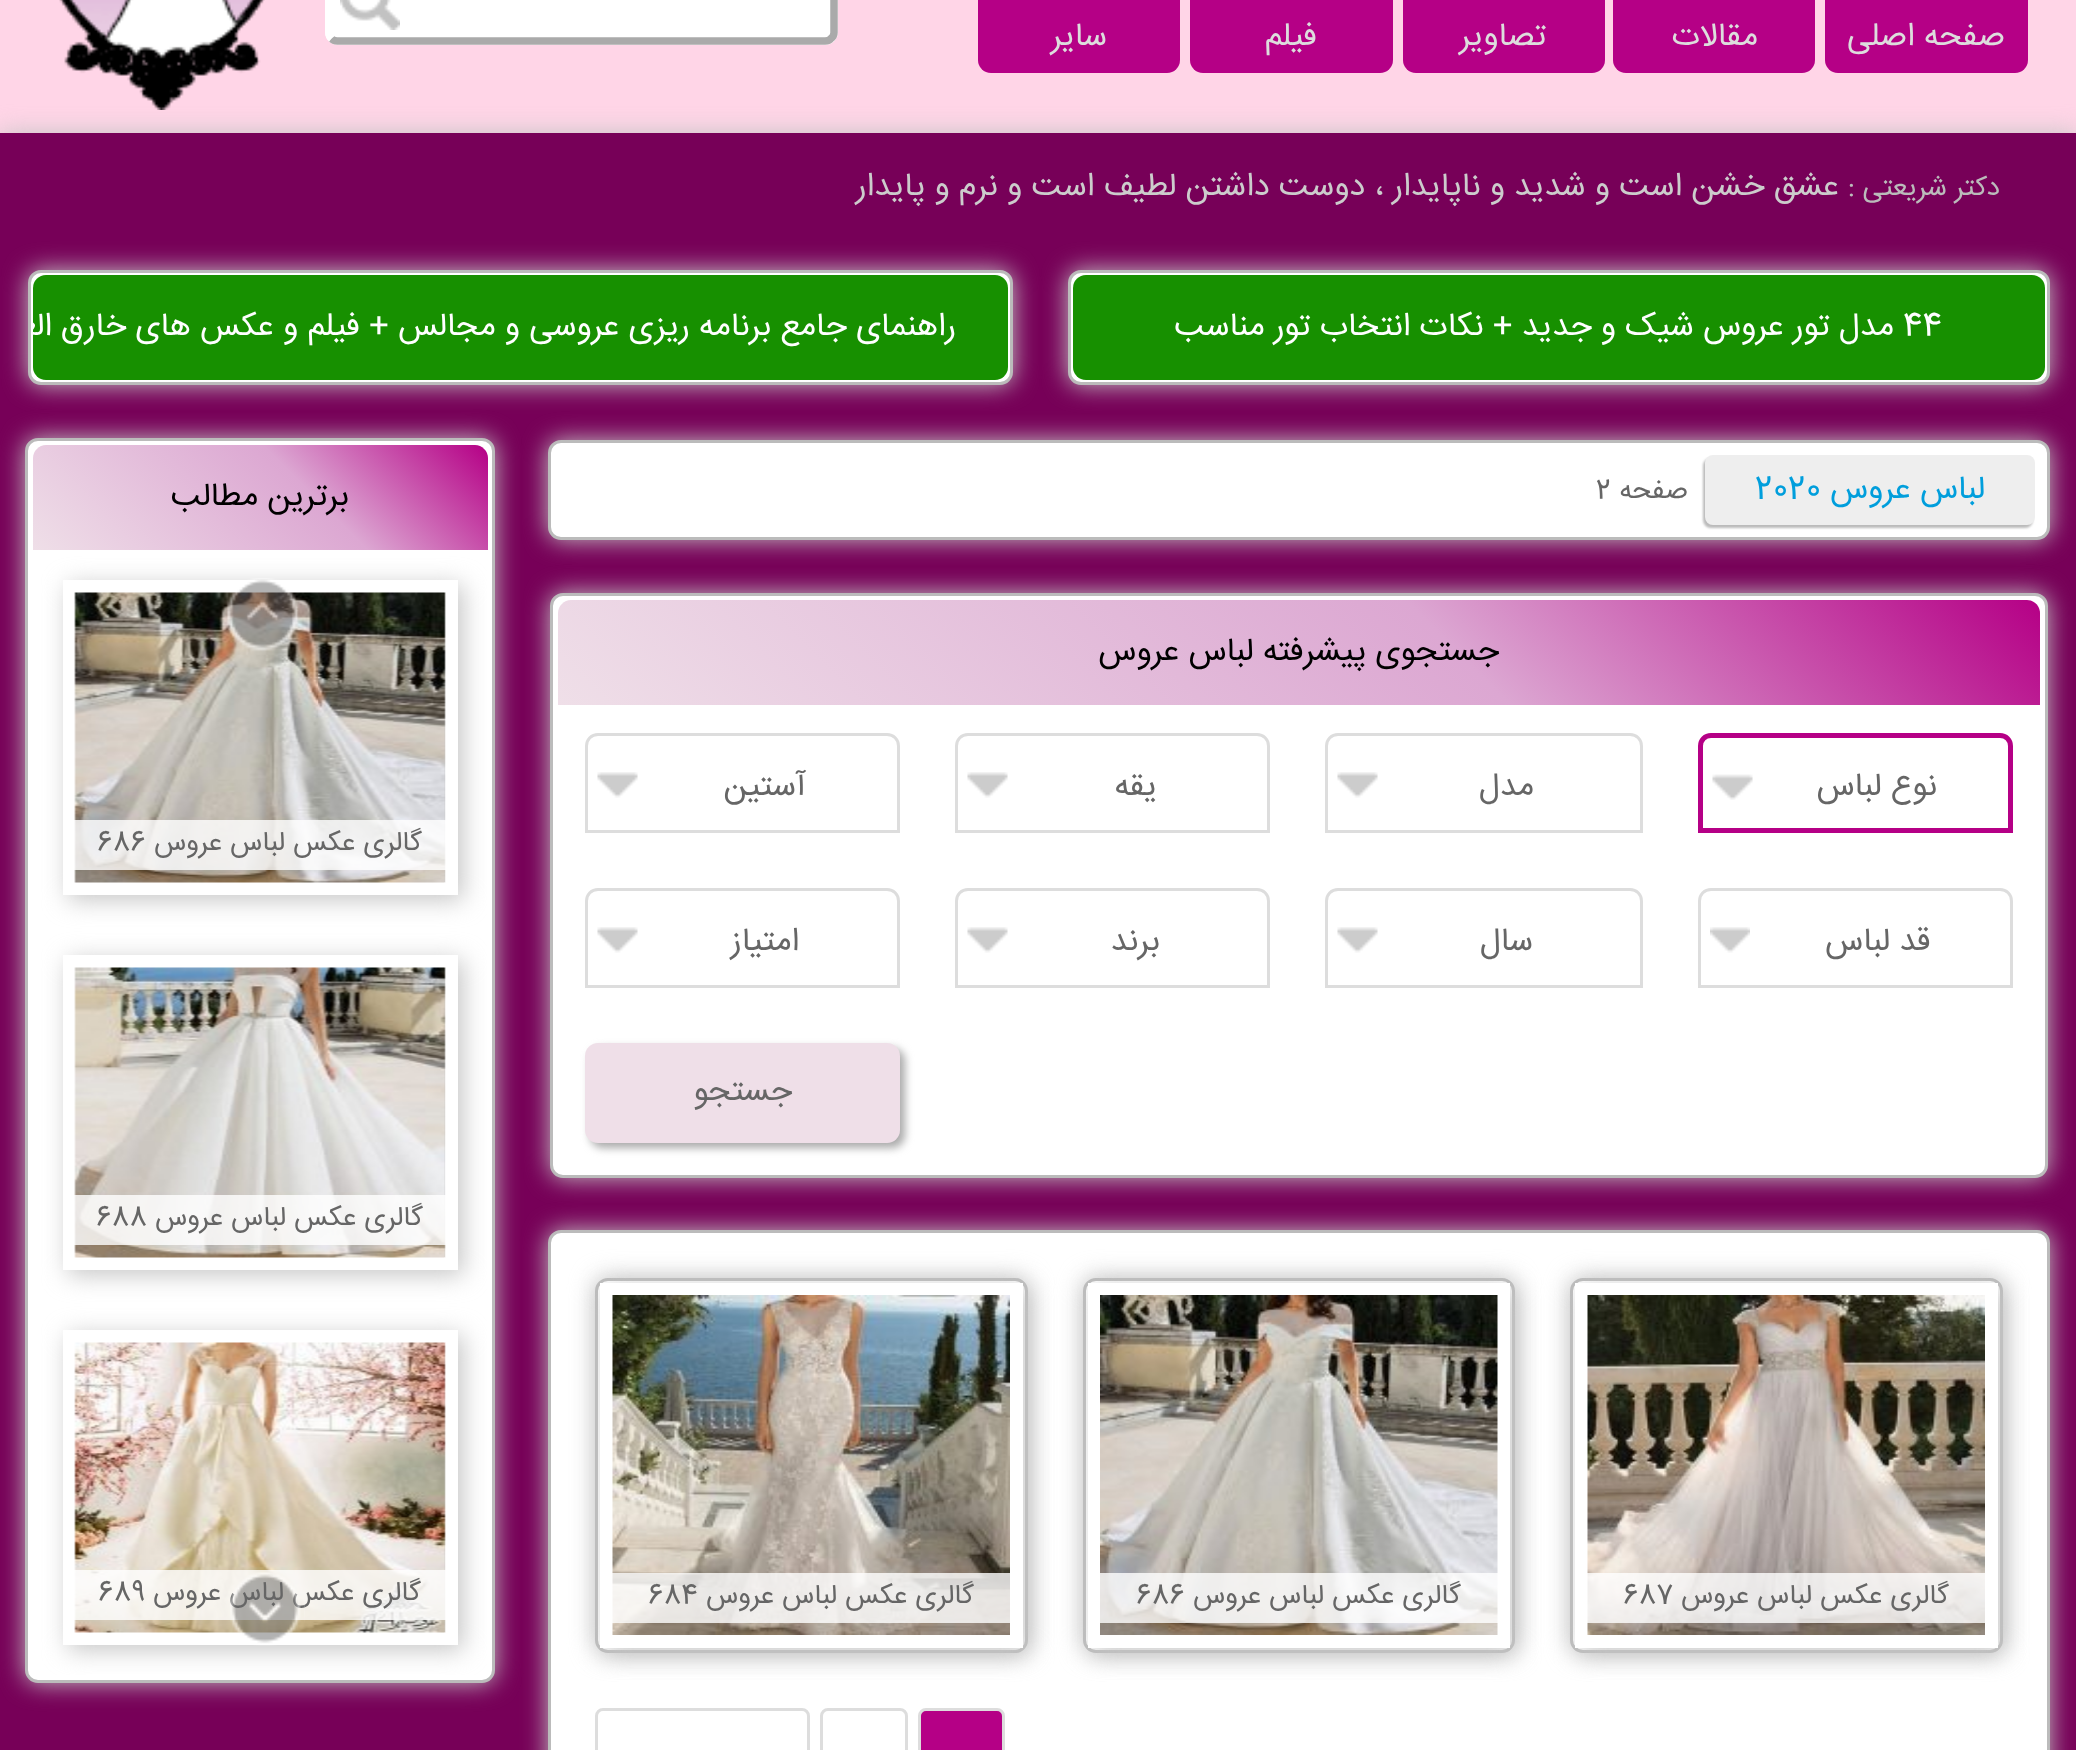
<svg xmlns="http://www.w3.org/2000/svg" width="2076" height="1750">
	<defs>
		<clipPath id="clip1"><rect x="33" y="275" width="975" height="105" rx="13" /></clipPath>
		<linearGradient id="g1" gradientUnits="userSpaceOnUse" x1="902" y1="1049" x2="1696" y2="256"><stop offset="0" stop-color="#EFDFE8" /><stop offset="0.6" stop-color="#DCA7D2" /><stop offset="1" stop-color="#B50086" /></linearGradient>
		<linearGradient id="g2" gradientUnits="userSpaceOnUse" x1="120" y1="638" x2="400" y2="358"><stop offset="0" stop-color="#EFDFE8" /><stop offset="0.6" stop-color="#DCA7D2" /><stop offset="1" stop-color="#B50086" /></linearGradient>
		<clipPath id="clip2"><rect x="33" y="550" width="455" height="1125" /></clipPath>
	</defs>
	<rect width="100%" height="100%" fill="#FFD5E7" />
	<image x="59" y="0" width="206" height="110" href="assets/img1.png" />
	<rect x="1825" y="-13" width="203" height="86" rx="13" fill="#B50086" />
	<text x="2005" y="45" font-family="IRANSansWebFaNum" font-size="32.5" direction="rtl" fill="#DDDDDD">صفحه اصلی</text>
	<rect x="1613" y="-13" width="202" height="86" rx="13" fill="#B50086" />
	<text x="1758" y="45" font-family="IRANSansWebFaNum" font-size="32.5" direction="rtl" fill="#DDDDDD">مقالات</text>
	<rect x="1403" y="-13" width="202" height="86" rx="13" fill="#B50086" />
	<text x="1546" y="45" font-family="IRANSansWebFaNum" font-size="32.5" direction="rtl" fill="#DDDDDD">تصاویر</text>
	<rect x="1190" y="-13" width="203" height="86" rx="13" fill="#B50086" />
	<text x="1317" y="45" font-family="IRANSansWebFaNum" font-size="32.5" direction="rtl" fill="#DDDDDD">فیلم</text>
	<rect x="978" y="-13" width="202" height="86" rx="13" fill="#B50086" />
	<text x="1107" y="45" font-family="IRANSansWebFaNum" font-size="32.5" direction="rtl" fill="#DDDDDD">سایر</text>
	<rect x="325" y="-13" width="513" height="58" rx="13" fill="#FFFFFF" />
	<path d="M831-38.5C833-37 834-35 834-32.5V32.5C834 35 833 37 831 38.5C829.5 40.5 827.5 41 825 41H337.5C335 41 333 40.5 331.5 38.5" fill="none" stroke="#AAAAAA" stroke-width="7.5" />
	<path d="M331.5 38.5C329.5 37 329 35 329 32.5V-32.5C329-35 329.5-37 331.5-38.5C333-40.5 335-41 337.5-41H825C827.5-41 829.5-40.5 831-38.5" fill="none" stroke="#FFFFFF" stroke-width="7.5" />
	<image x="340" y="0" width="60" height="30" href="assets/img2.png" />
	<rect x="0" y="133" width="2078" height="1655" fill="#C5C5C5" filter="blur(12.5px)" />
	<rect x="0" y="133" width="2076" height="1617" fill="#770058" />
	<text x="2000" y="195" font-family="IRANSansWebFaNum" font-size="27.5" direction="rtl" fill="#BBBBBB">دکتر شریعتی :</text>
	<text x="1839" y="195" font-family="IRANSansWebFaNum" font-size="32.5" direction="rtl" fill="#CCCCCC">عشق خشن است و شدید و ناپایدار ، دوست داشتن لطیف است و نرم و پایدار</text>
	<rect x="1068" y="270" width="982" height="115" rx="13" fill="#C5C5C5" filter="blur(12.5px)" />
	<rect x="1069.5" y="271.5" width="979" height="112" rx="11.5" fill="#FFFFFF" stroke="#BBBBBB" stroke-width="3" />
	<rect x="1073" y="275" width="972" height="105" rx="13" fill="#179000" />
	<text x="1903" y="335" font-family="IRANSansWebFaNum" font-size="32.5" fill="#FFFFFF">44</text>
	<text x="1894" y="335" font-family="IRANSansWebFaNum" font-size="32.5" direction="rtl" fill="#FFFFFF">مدل تور عروس شیک و جدید + نکات انتخاب تور مناسب</text>
	<rect x="28" y="270" width="985" height="115" rx="13" fill="#C5C5C5" filter="blur(12.5px)" />
	<rect x="29.5" y="271.5" width="982" height="112" rx="11.5" fill="#FFFFFF" stroke="#BBBBBB" stroke-width="3" />
	<rect x="33" y="275" width="975" height="105" rx="13" fill="#179000" />
	<g clip-path="url(#clip1)">
		<text x="956" y="335" font-family="IRANSansWebFaNum" font-size="32.5" direction="rtl" fill="#FFFFFF">راهنمای جامع برنامه ریزی عروسی و مجالس + فیلم و عکس های خارق العاده</text>
	</g>
	<rect x="548" y="440" width="1502" height="100" rx="13" fill="#C5C5C5" filter="blur(12.5px)" />
	<rect x="549.5" y="441.5" width="1499" height="97" rx="11.5" fill="#FFFFFF" stroke="#BBBBBB" stroke-width="3" />
	<rect x="1703" y="458" width="330" height="70" rx="8" fill="#BBBBBB" filter="blur(1px)" />
	<rect x="1705" y="455" width="330" height="70" rx="8" fill="#EEEEEE" />
	<text x="1985" y="498" font-family="IRANSansWebFaNum" font-size="32.5" direction="rtl" fill="#009EDC">لباس عروس</text>
	<text x="1755" y="498" font-family="IRANSansWebFaNum" font-size="32.5" fill="#009EDC">2020</text>
	<text x="1688" y="498" font-family="IRANSansWebFaNum" font-size="27.5" direction="rtl" fill="#666666">صفحه</text>
	<text x="1596" y="498" font-family="IRANSansWebFaNum" font-size="27.5" fill="#666666">2</text>
	<rect x="550" y="593" width="1498" height="585" rx="13" fill="#C5C5C5" filter="blur(12.5px)" />
	<rect x="551.5" y="594.5" width="1495" height="582" rx="11.5" fill="#FFFFFF" stroke="#BBBBBB" stroke-width="3" />
	<path d="M571 600H2027C2034 600 2040 606 2040 613V705H558V613C558 606 564 600 571 600Z" fill="url(#g1)" />
	<text x="1499" y="660" font-family="IRANSansWebFaNum" font-size="32.5" direction="rtl" fill="#000000">جستجوی پیشرفته لباس عروس</text>
	<image x="1712" y="774" width="41" height="26" href="assets/img3.png" />
	<path d="M1711 735.5H2000C2006 735.5 2010.5 740 2010.5 746V830.5H1700.5V746C1700.5 740 1705 735.5 1711 735.5Z" fill="none" stroke="#B50086" stroke-width="5" />
	<text x="1937" y="795" font-family="IRANSansWebFaNum" font-size="32.5" direction="rtl" fill="#666666">نوع لباس</text>
	<image x="1337" y="772" width="41" height="26" href="assets/img4.png" />
	<path d="M1338 734.5H1630C1636.5 734.5 1641.5 739.5 1641.5 746V831.5H1326.5V746C1326.5 739.5 1331.5 734.5 1338 734.5Z" fill="none" stroke="#DDDDDD" stroke-width="3" />
	<text x="1534" y="795" font-family="IRANSansWebFaNum" font-size="32.5" direction="rtl" fill="#666666">مدل</text>
	<image x="967" y="772" width="41" height="26" href="assets/img4.png" />
	<path d="M968 734.5H1257C1263.5 734.5 1268.5 739.5 1268.5 746V831.5H956.5V746C956.5 739.5 961.5 734.5 968 734.5Z" fill="none" stroke="#DDDDDD" stroke-width="3" />
	<text x="1157" y="795" font-family="IRANSansWebFaNum" font-size="32.5" direction="rtl" fill="#666666">یقه</text>
	<image x="597" y="772" width="41" height="26" href="assets/img5.png" />
	<path d="M598 734.5H887C893.5 734.5 898.5 739.5 898.5 746V831.5H586.5V746C586.5 739.5 591.5 734.5 598 734.5Z" fill="none" stroke="#DDDDDD" stroke-width="3" />
	<text x="806" y="795" font-family="IRANSansWebFaNum" font-size="32.5" direction="rtl" fill="#666666">آستین</text>
	<image x="1710" y="927" width="40" height="26" href="assets/img6.png" />
	<path d="M1711 889.5H2000C2006.5 889.5 2011.5 894.5 2011.5 901V986.5H1699.5V901C1699.5 894.5 1704.5 889.5 1711 889.5Z" fill="none" stroke="#DDDDDD" stroke-width="3" />
	<text x="1930" y="950" font-family="IRANSansWebFaNum" font-size="32.5" direction="rtl" fill="#666666">قد لباس</text>
	<image x="1337" y="927" width="41" height="26" href="assets/img4.png" />
	<path d="M1338 889.5H1630C1636.5 889.5 1641.5 894.5 1641.5 901V986.5H1326.5V901C1326.5 894.5 1331.5 889.5 1338 889.5Z" fill="none" stroke="#DDDDDD" stroke-width="3" />
	<text x="1533" y="950" font-family="IRANSansWebFaNum" font-size="32.5" direction="rtl" fill="#666666">سال</text>
	<image x="967" y="927" width="41" height="26" href="assets/img4.png" />
	<path d="M968 889.5H1257C1263.5 889.5 1268.5 894.5 1268.5 901V986.5H956.5V901C956.5 894.5 961.5 889.5 968 889.5Z" fill="none" stroke="#DDDDDD" stroke-width="3" />
	<text x="1160" y="950" font-family="IRANSansWebFaNum" font-size="32.5" direction="rtl" fill="#666666">برند</text>
	<image x="597" y="927" width="41" height="26" href="assets/img5.png" />
	<path d="M598 889.5H887C893.5 889.5 898.5 894.5 898.5 901V986.5H586.5V901C586.5 894.5 591.5 889.5 598 889.5Z" fill="none" stroke="#DDDDDD" stroke-width="3" />
	<text x="799" y="950" font-family="IRANSansWebFaNum" font-size="32.5" direction="rtl" fill="#666666">امتیاز</text>
	<rect x="590" y="1048" width="315" height="100" rx="13" fill="#AAAAAA" filter="blur(4px)" />
	<rect x="585" y="1043" width="315" height="100" rx="13" fill="#EFDFE8" />
	<text x="792" y="1100" font-family="IRANSansWebFaNum" font-size="32.5" direction="rtl" fill="#666666">جستجو</text>
	<rect x="548" y="1230" width="1502" height="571" rx="13" fill="#C5C5C5" filter="blur(12.5px)" />
	<rect x="549.5" y="1231.5" width="1499" height="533" rx="11.5" fill="#FFFFFF" stroke="#BBBBBB" stroke-width="3" />
	<rect x="1570" y="1278" width="433" height="375" rx="13" fill="#C5C5C5" filter="blur(12.5px)" />
	<rect x="1571.5" y="1279.5" width="430" height="372" rx="11.5" fill="#FFFFFF" stroke="#BBBBBB" stroke-width="3" />
	<rect x="1580" y="1288" width="423" height="365" fill="#C5C5C5" filter="blur(12.5px)" />
	<rect x="1581.5" y="1289.5" width="410" height="352" fill="none" stroke="#FFFFFF" stroke-width="13" />
	<image x="1587" y="1295" width="398" height="340" href="assets/img7.png" />
	<rect x="1587" y="1573" width="398" height="50" fill="#FFFFFF" fill-opacity="0.8" />
	<text x="1949" y="1603" font-family="IRANSansWebFaNum" font-size="27.5" direction="rtl" fill="#666666">گالری عکس لباس عروس</text>
	<text x="1623" y="1603" font-family="IRANSansWebFaNum" font-size="27.5" fill="#666666">687</text>
	<rect x="1083" y="1278" width="432" height="375" rx="13" fill="#C5C5C5" filter="blur(12.5px)" />
	<rect x="1084.5" y="1279.5" width="429" height="372" rx="11.5" fill="#FFFFFF" stroke="#BBBBBB" stroke-width="3" />
	<rect x="1093" y="1288" width="422" height="365" fill="#C5C5C5" filter="blur(12.5px)" />
	<rect x="1094.5" y="1289.5" width="409" height="352" fill="none" stroke="#FFFFFF" stroke-width="13" />
	<image x="1100" y="1295" width="398" height="340" href="assets/img8.png" />
	<rect x="1100" y="1573" width="398" height="50" fill="#FFFFFF" fill-opacity="0.8" />
	<text x="1461" y="1603" font-family="IRANSansWebFaNum" font-size="27.5" direction="rtl" fill="#666666">گالری عکس لباس عروس</text>
	<text x="1136" y="1603" font-family="IRANSansWebFaNum" font-size="27.5" fill="#666666">686</text>
	<rect x="595" y="1278" width="433" height="375" rx="13" fill="#C5C5C5" filter="blur(12.5px)" />
	<rect x="596.5" y="1279.5" width="430" height="372" rx="11.5" fill="#FFFFFF" stroke="#BBBBBB" stroke-width="3" />
	<rect x="605" y="1288" width="423" height="365" fill="#C5C5C5" filter="blur(12.5px)" />
	<rect x="606.5" y="1289.5" width="410" height="352" fill="none" stroke="#FFFFFF" stroke-width="13" />
	<image x="612" y="1295" width="398" height="340" href="assets/img9.png" />
	<rect x="612" y="1573" width="398" height="50" fill="#FFFFFF" fill-opacity="0.8" />
	<text x="974" y="1603" font-family="IRANSansWebFaNum" font-size="27.5" direction="rtl" fill="#666666">گالری عکس لباس عروس</text>
	<text x="648" y="1603" font-family="IRANSansWebFaNum" font-size="27.5" fill="#666666">684</text>
	<rect x="919.5" y="1709.5" width="84" height="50" rx="6.5" fill="#B50086" stroke="#DDDDDD" stroke-width="3" />
	<rect x="821.5" y="1709.5" width="85" height="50" rx="6.5" fill="none" stroke="#DDDDDD" stroke-width="3" />
	<rect x="596.5" y="1709.5" width="212" height="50" rx="6.5" fill="none" stroke="#DDDDDD" stroke-width="3" />
	<rect x="25" y="438" width="470" height="1245" rx="13" fill="#C5C5C5" filter="blur(12.5px)" />
	<rect x="26.5" y="439.5" width="467" height="1242" rx="11.5" fill="#FFFFFF" stroke="#BBBBBB" stroke-width="3" />
	<path d="M46 445H475C482 445 488 451 488 458V550H33V458C33 451 39 445 46 445Z" fill="url(#g2)" />
	<text x="349" y="505" font-family="IRANSansWebFaNum" font-size="32.5" direction="rtl" fill="#000000">برترین مطالب</text>
	<g clip-path="url(#clip2)">
		<rect x="68" y="585" width="395" height="315" fill="#C5C5C5" filter="blur(12.5px)" />
	</g>
	<rect x="69.5" y="586.5" width="382" height="302" fill="none" stroke="#FFFFFF" stroke-width="13" />
	<image x="74" y="592" width="372" height="291" href="assets/img12.png" />
	<image x="226" y="578" width="73" height="73" href="assets/img10.png" />
	<g clip-path="url(#clip2)">
		<rect x="68" y="1335" width="395" height="315" fill="#C5C5C5" filter="blur(12.5px)" />
	</g>
	<rect x="69.5" y="1336.5" width="382" height="302" fill="none" stroke="#FFFFFF" stroke-width="13" />
	<image x="74" y="1342" width="372" height="291" href="assets/img14.png" />
	<rect x="74" y="1570" width="372" height="50" fill="#FFFFFF" fill-opacity="0.8" />
	<text x="421" y="1600" font-family="IRANSansWebFaNum" font-size="27.5" direction="rtl" fill="#666666">گالری عکس لباس عروس</text>
	<image x="230" y="1572" width="75" height="74" href="assets/img11.png" />
	<rect x="74" y="820" width="372" height="50" fill="#FFFFFF" fill-opacity="0.8" />
	<text x="422" y="850" font-family="IRANSansWebFaNum" font-size="27.5" direction="rtl" fill="#666666">گالری عکس لباس عروس</text>
	<text x="97" y="850" font-family="IRANSansWebFaNum" font-size="27.5" fill="#666666">686</text>
	<g clip-path="url(#clip2)">
		<rect x="68" y="960" width="395" height="315" fill="#C5C5C5" filter="blur(12.5px)" />
	</g>
	<rect x="69.5" y="961.5" width="382" height="302" fill="none" stroke="#FFFFFF" stroke-width="13" />
	<image x="74" y="967" width="372" height="291" href="assets/img13.png" />
	<rect x="74" y="1195" width="372" height="50" fill="#FFFFFF" fill-opacity="0.8" />
	<text x="423" y="1225" font-family="IRANSansWebFaNum" font-size="27.5" direction="rtl" fill="#666666">گالری عکس لباس عروس</text>
	<g font-family="IRANSansWebFaNum" font-size="27.5" fill="#666666">
		<text x="96" y="1225">688</text>
		<text x="98" y="1600">689</text>
	</g>
</svg>
